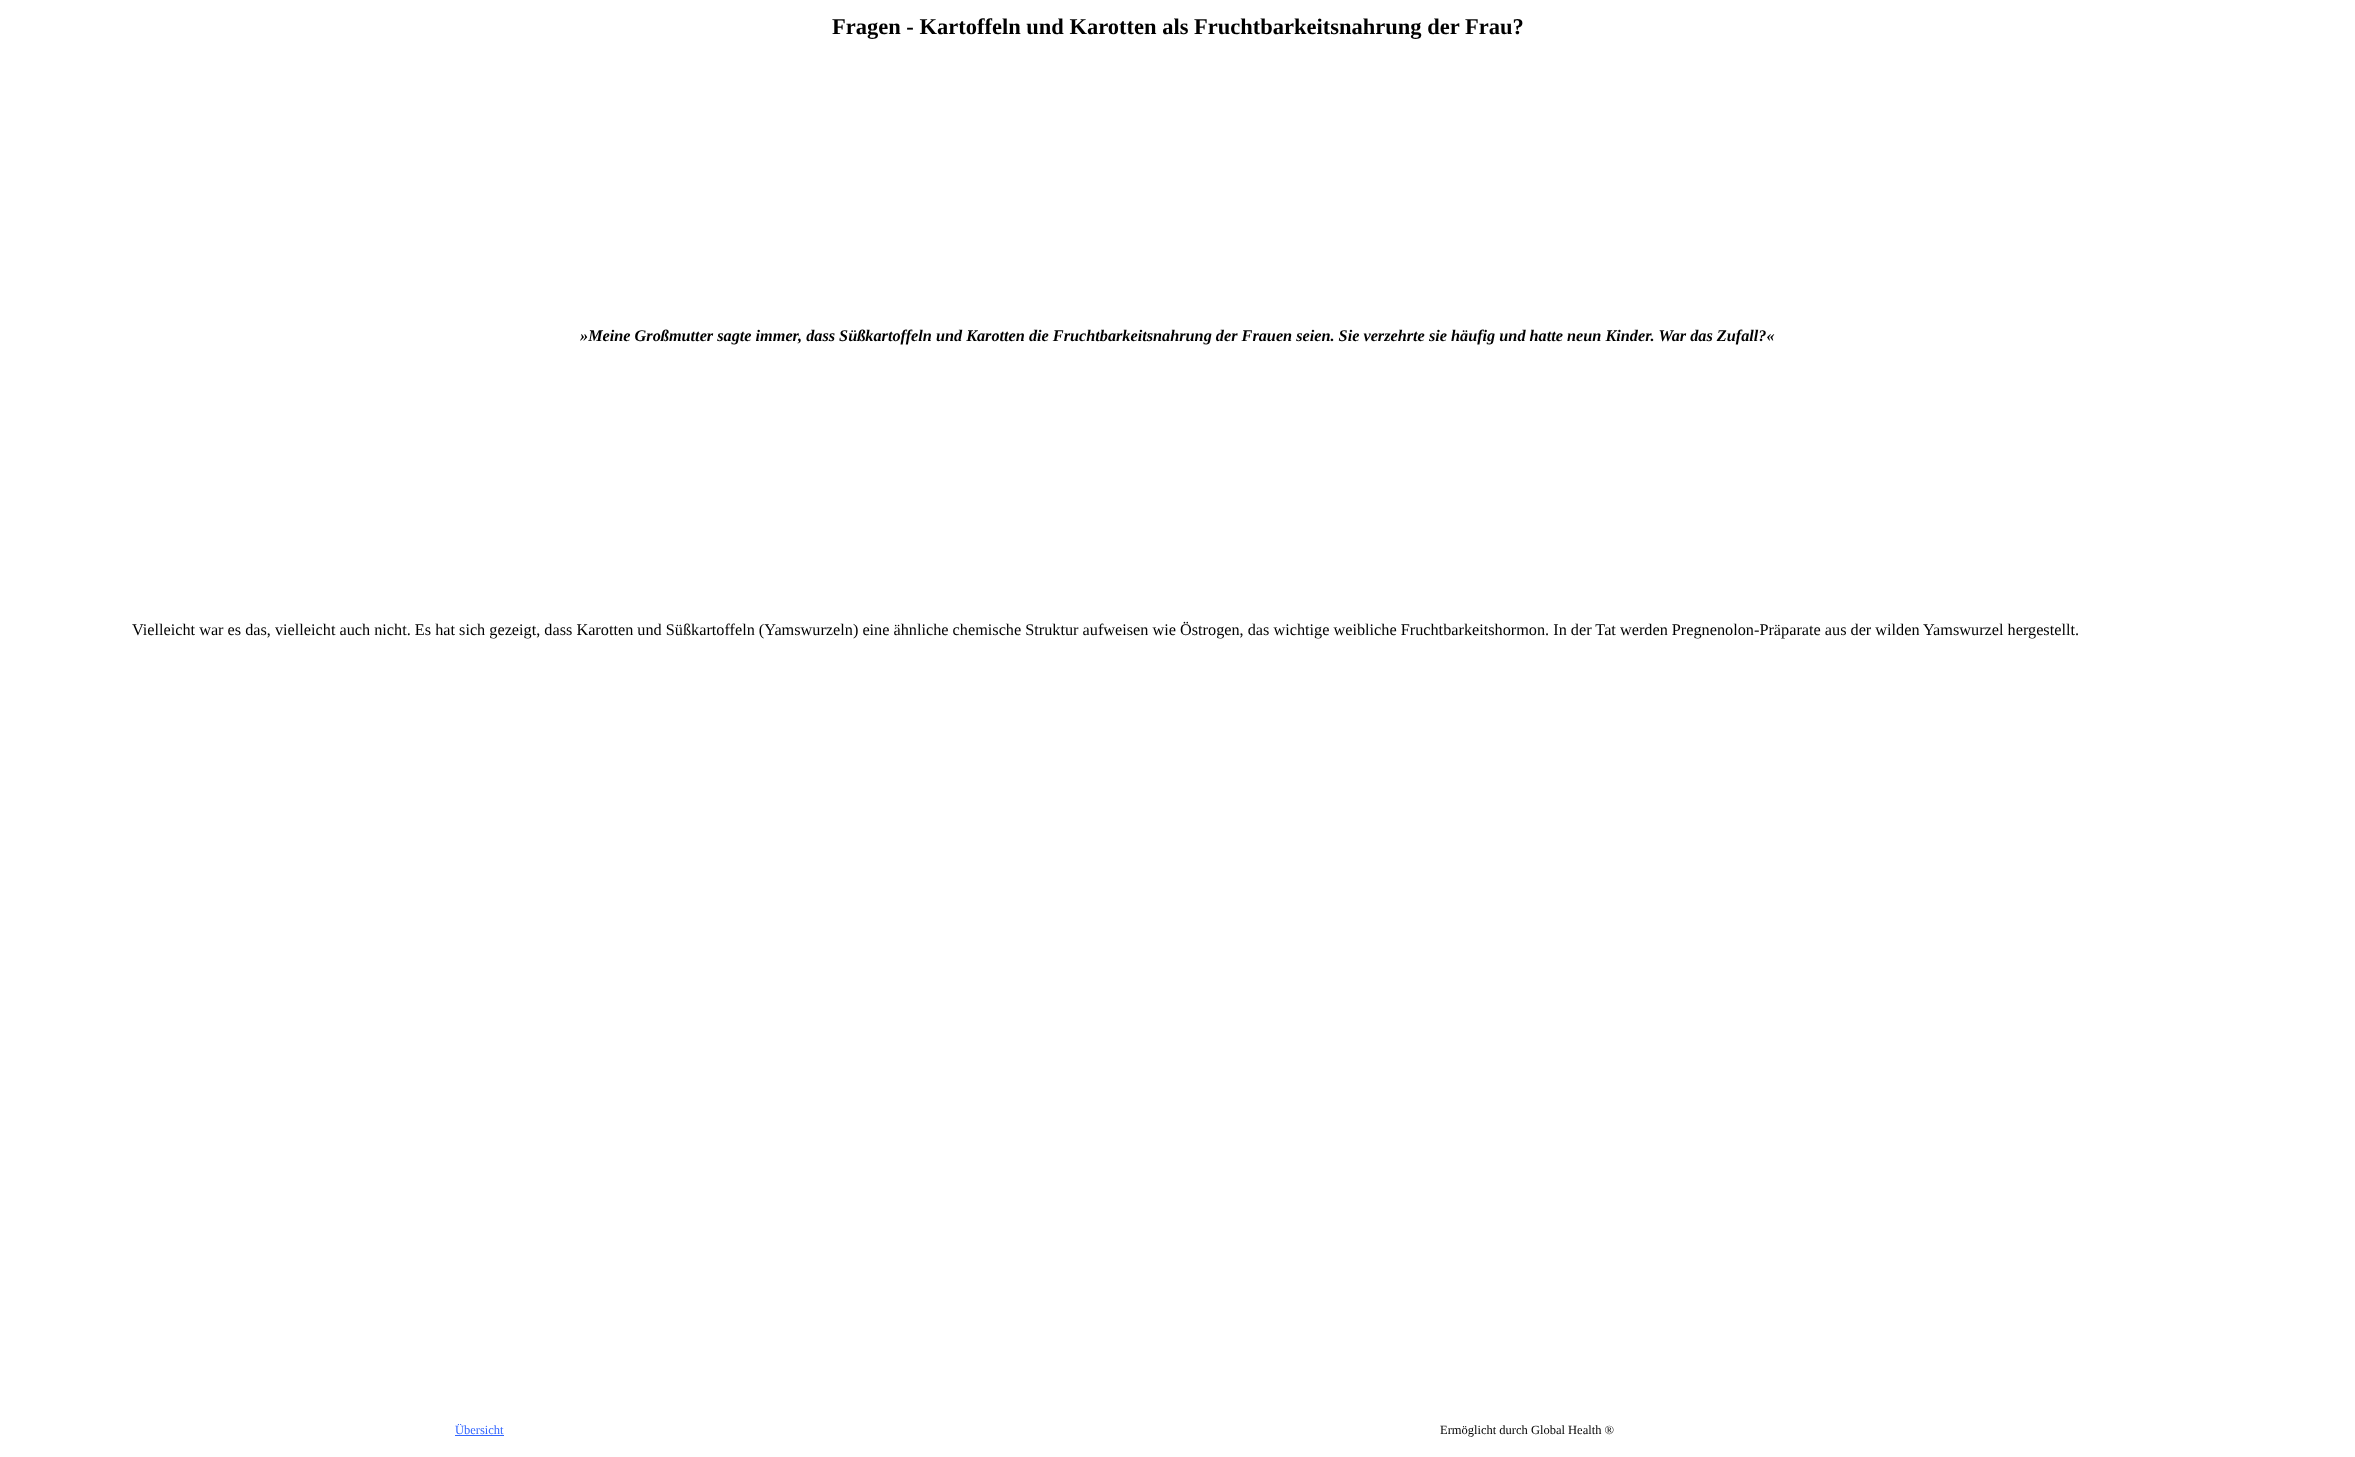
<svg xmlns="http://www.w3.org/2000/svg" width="2355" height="1457">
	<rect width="100%" height="100%" fill="#FFFFFF" />
	<text x="832" y="34" font-family="Liberation Serif" font-size="22.5" font-weight="700" fill="#000000">Fragen - Kartoffeln und Karotten als Fruchtbarkeitsnahrung der Frau?</text>
	<text x="580" y="341" font-family="Liberation Serif" font-size="16.25" font-weight="700" font-style="italic" fill="#000000">»Meine Großmutter sagte immer, dass Süßkartoffeln und Karotten die Fruchtbarkeitsnahrung der Frauen seien. Sie verzehrte sie häufig und hatte neun Kinder. War das Zufall?«</text>
	<text x="132" y="635" font-family="Liberation Serif" font-size="16.25" fill="#000000">Vielleicht war es das, vielleicht auch nicht. Es hat sich gezeigt, dass Karotten und Süßkartoffeln (Yamswurzeln) eine ähnliche chemische Struktur aufweisen wie Östrogen, das wichtige weibliche Fruchtbarkeitshormon. In der Tat werden Pregnenolon-Präparate aus der wilden Yamswurzel hergestellt.</text>
	<text x="455" y="1434" font-family="Liberation Serif" font-size="12.5" fill="#3366FF">Übersicht</text>
	<rect x="455" y="1435" width="49" height="1" fill="#3366FF" />
	<text x="1440" y="1434" font-family="Liberation Serif" font-size="12.5" fill="#000000">Ermöglicht durch Global Health ®</text>
</svg>
